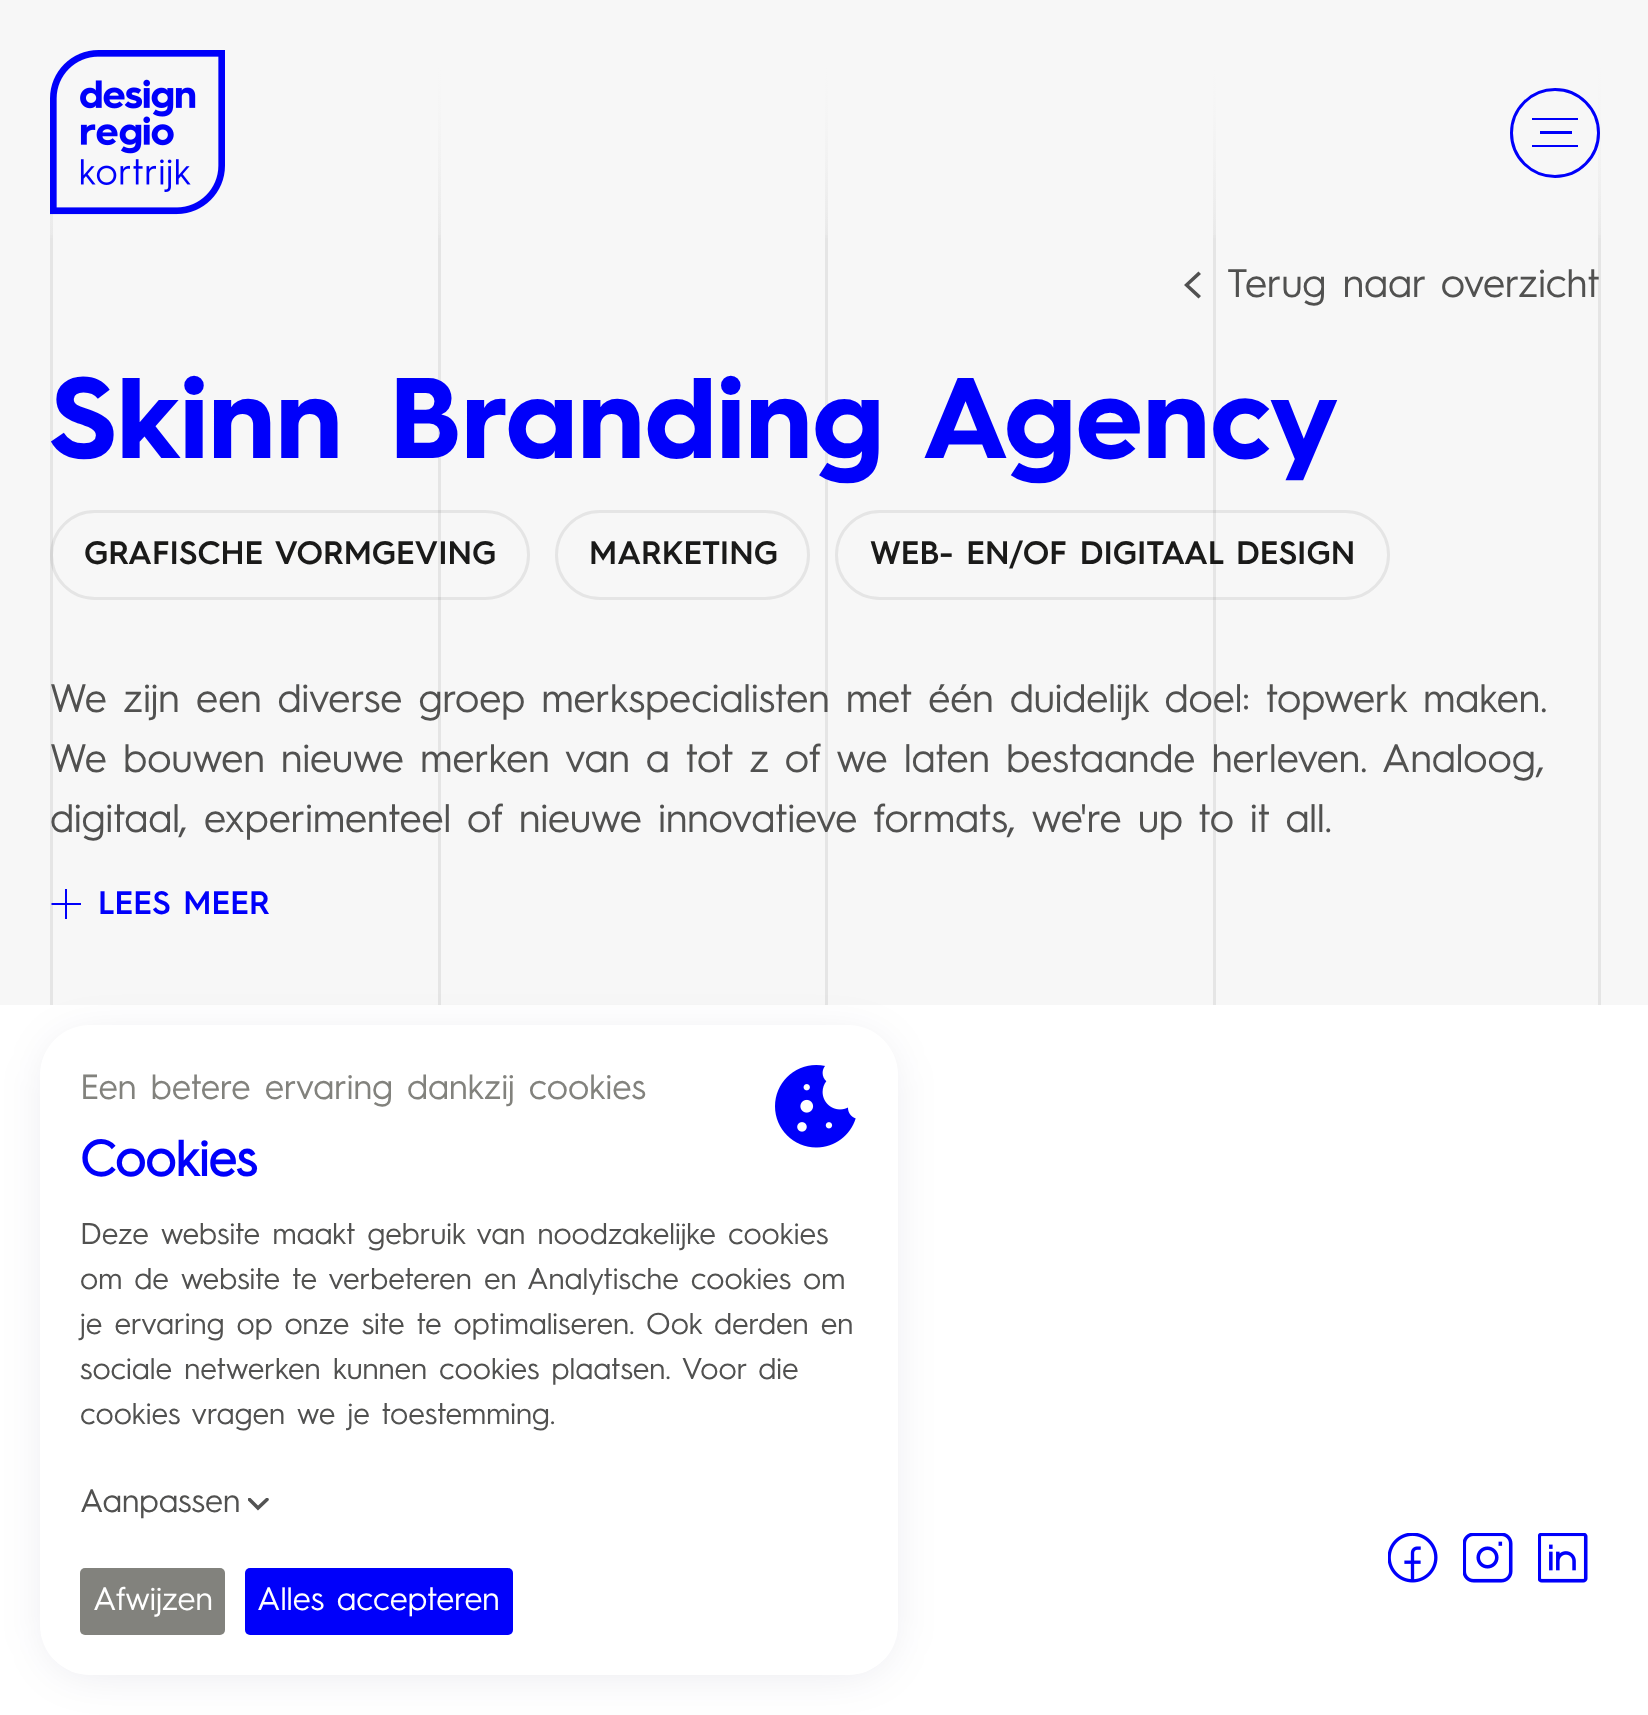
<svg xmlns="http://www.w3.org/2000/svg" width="1648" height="1715">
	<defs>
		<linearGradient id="g1" gradientUnits="userSpaceOnUse" x1="825" y1="265" x2="825" y2="0"><stop offset="0" stop-color="#F7F7F7" stop-opacity="0" /><stop offset="1" stop-color="#F7F7F7" /></linearGradient>
		<linearGradient id="g2" gradientUnits="userSpaceOnUse" x1="825" y1="265" x2="825" y2="0"><stop offset="0" stop-color="#F7F7F7" stop-opacity="0" /><stop offset="0.75" stop-color="#F7F7F7" /></linearGradient>
		<clipPath id="clip1"><rect x="248" y="1498" width="22" height="15" /></clipPath>
	</defs>
	<rect width="100%" height="100%" fill="#F7F7F7" />
	<rect x="50" y="67" width="3" height="938" fill="#E5E5E5" />
	<rect x="438" y="67" width="3" height="938" fill="#E5E5E5" />
	<rect x="825" y="67" width="3" height="938" fill="#E5E5E5" />
	<rect x="1598" y="67" width="3" height="938" fill="#E5E5E5" />
	<rect x="1213" y="67" width="3" height="938" fill="#E5E5E5" />
	<rect x="50" y="67" width="1551" height="171" fill="url(#g1)" />
	<rect x="50" y="67" width="1551" height="168" fill="url(#g2)" />
	<image x="50" y="50" width="175" height="165" href="assets/img1.png" />
	<circle cx="1555" cy="133" r="43.5" fill="none" stroke="#0000FA" stroke-width="3" />
	<path d="M1532 118H1578V120H1532ZM1540 131H1572V134H1540ZM1532 145H1578V147H1532Z" fill="#0000FA" />
	<path d="M1189 285L1201 296L1198.5 298.5L1184 285L1198.5 271.5L1201 274Z" fill="#515151" />
	<text x="1227" y="297" font-family="'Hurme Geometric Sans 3'" font-size="40" fill="#515150">Terug naar overzicht</text>
	<text x="50" y="458" font-family="'Hurme Geometric Sans 3'" font-size="115" font-weight="700" fill="#0000FA">Skinn Branding Agency</text>
	<rect x="51.5" y="511.5" width="477" height="87" rx="43.5" fill="none" stroke="#1A1A19" stroke-opacity="0.08" stroke-width="3" />
	<text x="84" y="564" font-family="'Hurme Geometric Sans 3'" font-size="32.5" font-weight="600" fill="#1A1A19">GRAFISCHE VORMGEVING</text>
	<rect x="556.5" y="511.5" width="252" height="87" rx="43.5" fill="none" stroke="#E5E5E5" stroke-width="3" />
	<text x="589" y="564" font-family="'Hurme Geometric Sans 3'" font-size="32.5" font-weight="600" fill="#1A1A19">MARKETING</text>
	<rect x="836.5" y="511.5" width="552" height="87" rx="43.5" fill="none" stroke="#1A1A19" stroke-opacity="0.08" stroke-width="3" />
	<text x="870" y="564" font-family="'Hurme Geometric Sans 3'" font-size="32.5" font-weight="600" fill="#1A1A19">WEB- EN/OF DIGITAAL DESIGN</text>
	<g font-family="'Hurme Geometric Sans 3'" font-size="40" fill="#515150">
		<text x="50" y="712">We zijn een diverse groep merkspecialisten met één duidelijk doel: topwerk maken.</text>
		<text x="50" y="772">We bouwen nieuwe merken van a tot z of we laten bestaande herleven. Analoog,</text>
		<text x="50" y="832">digitaal, experimenteel of nieuwe innovatieve formats, we're up to it all.</text>
	</g>
	<path d="M51.5 904H81M51.5 903H81V905H51.5ZM66 889V918.5" fill="#0000FA" />
	<rect x="65" y="889" width="2" height="30" fill="#0000FA" />
	<text x="98" y="914" font-family="'Hurme Geometric Sans 3'" font-size="32.5" font-weight="600" fill="#0000FA">LEES MEER</text>
	<rect x="0" y="1005" width="1648" height="710" fill="#FFFFFF" />
	<image x="1388" y="1533" width="50" height="50" href="assets/img2.png" />
	<image x="1463" y="1533" width="50" height="50" href="assets/img3.png" />
	<image x="1538" y="1533" width="50" height="50" href="assets/img4.png" />
	<rect x="50" y="1040" width="838" height="630" rx="40" fill="#01013F" fill-opacity="0.1" filter="blur(24px)" />
	<rect x="40" y="1025" width="858" height="650" rx="50" fill="#FFFFFF" />
	<text x="80" y="1099" font-family="'Hurme Geometric Sans 3'" font-size="35" fill="#82827D">Een betere ervaring dankzij cookies</text>
	<text x="80" y="1176" font-family="'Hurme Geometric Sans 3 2'" font-size="50" font-weight="700" fill="#0000FA">Cookies</text>
	<image x="775" y="1065" width="81" height="83" href="assets/img5.png" />
	<g font-family="'Hurme Geometric Sans 3'" font-size="30" fill="#515150">
		<text x="80" y="1244">Deze website maakt gebruik van noodzakelijke cookies</text>
		<text x="80" y="1289">om de website te verbeteren en Analytische cookies om</text>
		<text x="80" y="1334">je ervaring op onze site te optimaliseren. Ook derden en</text>
		<text x="80" y="1379">sociale netwerken kunnen cookies plaatsen. Voor die</text>
		<text x="80" y="1424">cookies vragen we je toestemming.</text>
	</g>
	<text x="80" y="1512" font-family="'Hurme Geometric Sans 3'" font-size="32.5" fill="#515150">Aanpassen</text>
	<g clip-path="url(#clip1)">
		<path d="M249.5 1499.5L258 1508L267 1499.5" fill="none" stroke="#535353" stroke-width="3.5" stroke-linecap="round" />
	</g>
	<rect x="80" y="1568" width="145" height="67" rx="5" fill="#82827D" />
	<text x="93" y="1610" font-family="'Hurme Geometric Sans 3'" font-size="32.5" fill="#FFFFFF">Afwijzen</text>
	<rect x="245" y="1568" width="268" height="67" rx="5" fill="#0000FA" />
	<text x="257" y="1610" font-family="'Hurme Geometric Sans 3'" font-size="32.5" fill="#FFFFFF">Alles accepteren</text>
</svg>
